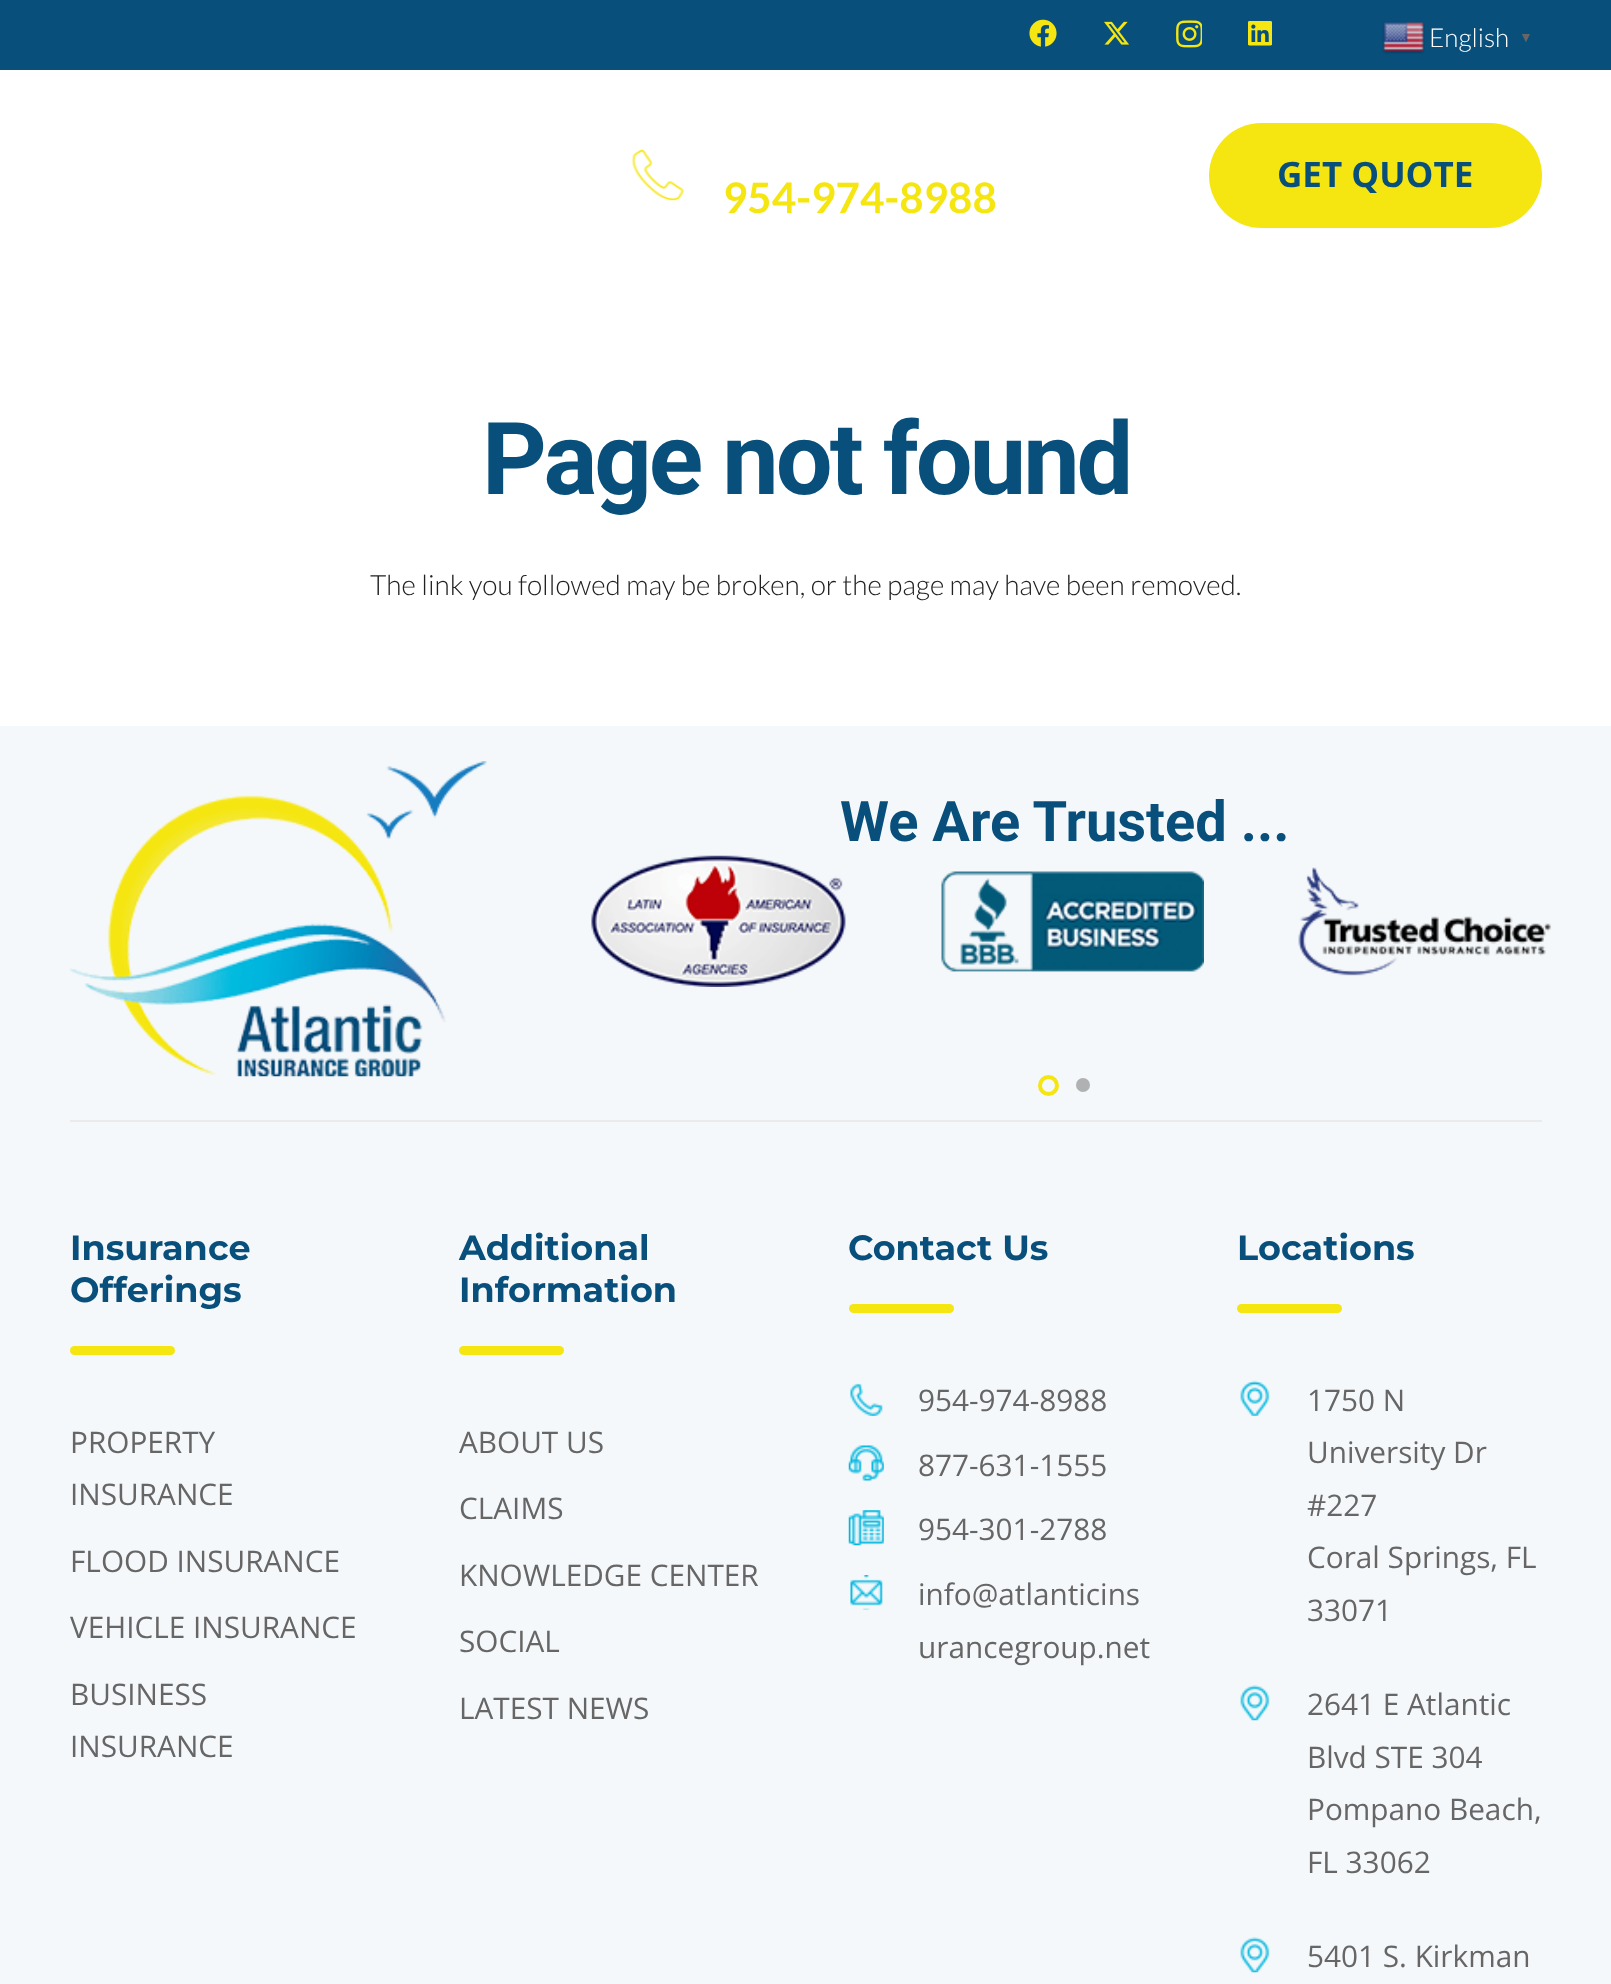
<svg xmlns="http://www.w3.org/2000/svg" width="1611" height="1984">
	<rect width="100%" height="100%" fill="#FFFFFF" />
	<rect x="0" y="0" width="1611" height="70" fill="#084F7B" />
	<image x="1029" y="19" width="28" height="28" href="assets/img1.png" />
	<image x="1104" y="21" width="25" height="24" href="assets/img2.png" />
	<image x="1176" y="20" width="26" height="28" href="assets/img3.png" />
	<image x="1248" y="21" width="24" height="25" href="assets/img4.png" />
	<image x="1382" y="21" width="43" height="33" href="assets/img5.png" />
	<text x="1429" y="47" font-family="Lato" font-size="26" font-weight="300" fill="#FFFFFF">English</text>
	<text x="1519" y="42" font-family="Liberation Sans" font-size="14" font-weight="700" fill="#666666">▼</text>
	<rect x="1209" y="123" width="333" height="105" rx="52.5" fill="#F5E612" />
	<text x="1277" y="187" font-family="Open Sans" font-size="35" font-weight="700" fill="#084F7B">GET QUOTE</text>
	<image x="632" y="149" width="52" height="52" href="assets/img6.png" />
	<text x="723" y="213" font-family="Lato" font-size="42" font-weight="700" fill="#F5E612">954-974-8988</text>
	<text x="482" y="494" font-family="Roboto" font-size="100.75" font-weight="700" letter-spacing="-3" fill="#084F7B">Page not found</text>
	<text x="370" y="595" font-family="Lato" font-size="28" font-weight="300" fill="#212121">The link you followed may be broken, or the page may have been removed.</text>
	<rect x="0" y="726" width="1611" height="1258" fill="#F5F8FA" />
	<rect x="70" y="1120" width="1472" height="2" fill="#EBEBEB" />
	<image x="70" y="761" width="417" height="316" href="assets/img7.png" />
	<text x="840" y="841" font-family="Roboto" font-size="56" font-weight="700" fill="#084F7B">We Are Trusted ...</text>
	<image x="591" y="855" width="255" height="132" href="assets/img8.png" />
	<image x="941" y="871" width="263" height="101" href="assets/img9.png" />
	<image x="1298" y="867" width="253" height="109" href="assets/img10.png" />
	<circle cx="1048.5" cy="1085.5" r="8.5" fill="none" stroke="#F5E612" stroke-width="4" />
	<circle cx="1083" cy="1085" r="7" fill="#AFB1B2" />
	<g font-family="Montserrat" font-size="35" font-weight="700" fill="#084F7B">
		<text x="70" y="1260">Insurance</text>
		<text x="70" y="1302">Offerings</text>
	</g>
	<rect x="70" y="1346" width="105" height="9" rx="4.5" fill="#F5E612" />
	<g font-family="Open Sans" font-size="29.75" fill="#666666">
		<text x="70" y="1453">PROPERTY</text>
		<text x="70" y="1505">INSURANCE</text>
		<text x="70" y="1572">FLOOD INSURANCE</text>
		<text x="70" y="1638">VEHICLE INSURANCE</text>
		<text x="70" y="1705">BUSINESS</text>
		<text x="70" y="1757">INSURANCE</text>
	</g>
	<g font-family="Montserrat" font-size="35" font-weight="700" fill="#084F7B">
		<text x="459" y="1260">Additional</text>
		<text x="459" y="1302">Information</text>
	</g>
	<rect x="459" y="1346" width="105" height="9" rx="4.5" fill="#F5E612" />
	<g font-family="Open Sans" font-size="29.75" fill="#666666">
		<text x="459" y="1453">ABOUT US</text>
		<text x="459" y="1519">CLAIMS</text>
		<text x="459" y="1586">KNOWLEDGE CENTER</text>
		<text x="459" y="1652">SOCIAL</text>
		<text x="459" y="1719">LATEST NEWS</text>
	</g>
	<text x="848" y="1260" font-family="Montserrat" font-size="35" font-weight="700" fill="#084F7B">Contact Us</text>
	<rect x="849" y="1304" width="105" height="9" rx="4.5" fill="#F5E612" />
	<image x="850" y="1383" width="33" height="33" href="assets/img11.png" />
	<text x="918" y="1411" font-family="Open Sans" font-size="29.75" fill="#666666">954-974-8988</text>
	<image x="848" y="1445" width="36" height="36" href="assets/img12.png" />
	<text x="918" y="1476" font-family="Open Sans" font-size="29.75" fill="#666666">877-631-1555</text>
	<image x="848" y="1510" width="36" height="36" href="assets/img13.png" />
	<text x="918" y="1540" font-family="Open Sans" font-size="29.75" fill="#666666">954-301-2788</text>
	<image x="850" y="1575" width="33" height="35" href="assets/img14.png" />
	<g font-family="Open Sans" font-size="29.75" fill="#666666">
		<text x="918" y="1605">info@atlanticins</text>
		<text x="918" y="1658">urancegroup.net</text>
	</g>
	<text x="1237" y="1260" font-family="Montserrat" font-size="35" font-weight="700" fill="#084F7B">Locations</text>
	<rect x="1237" y="1304" width="105" height="9" rx="4.5" fill="#F5E612" />
	<image x="1240" y="1380" width="30" height="36" href="assets/img15.png" />
	<g font-family="Open Sans" font-size="29.75" fill="#666666">
		<text x="1307" y="1411">1750 N</text>
		<text x="1307" y="1463">University Dr</text>
		<text x="1307" y="1516">#227</text>
		<text x="1307" y="1568">Coral Springs, FL</text>
		<text x="1307" y="1621">33071</text>
	</g>
	<image x="1240" y="1685" width="30" height="36" href="assets/img16.png" />
	<g font-family="Open Sans" font-size="29.75" fill="#666666">
		<text x="1307" y="1715">2641 E Atlantic</text>
		<text x="1307" y="1768">Blvd STE 304</text>
		<text x="1307" y="1820">Pompano Beach,</text>
		<text x="1307" y="1873">FL 33062</text>
	</g>
	<image x="1240" y="1937" width="30" height="36" href="assets/img16.png" />
	<text x="1307" y="1967" font-family="Open Sans" font-size="29.75" fill="#666666">5401 S. Kirkman</text>
</svg>
